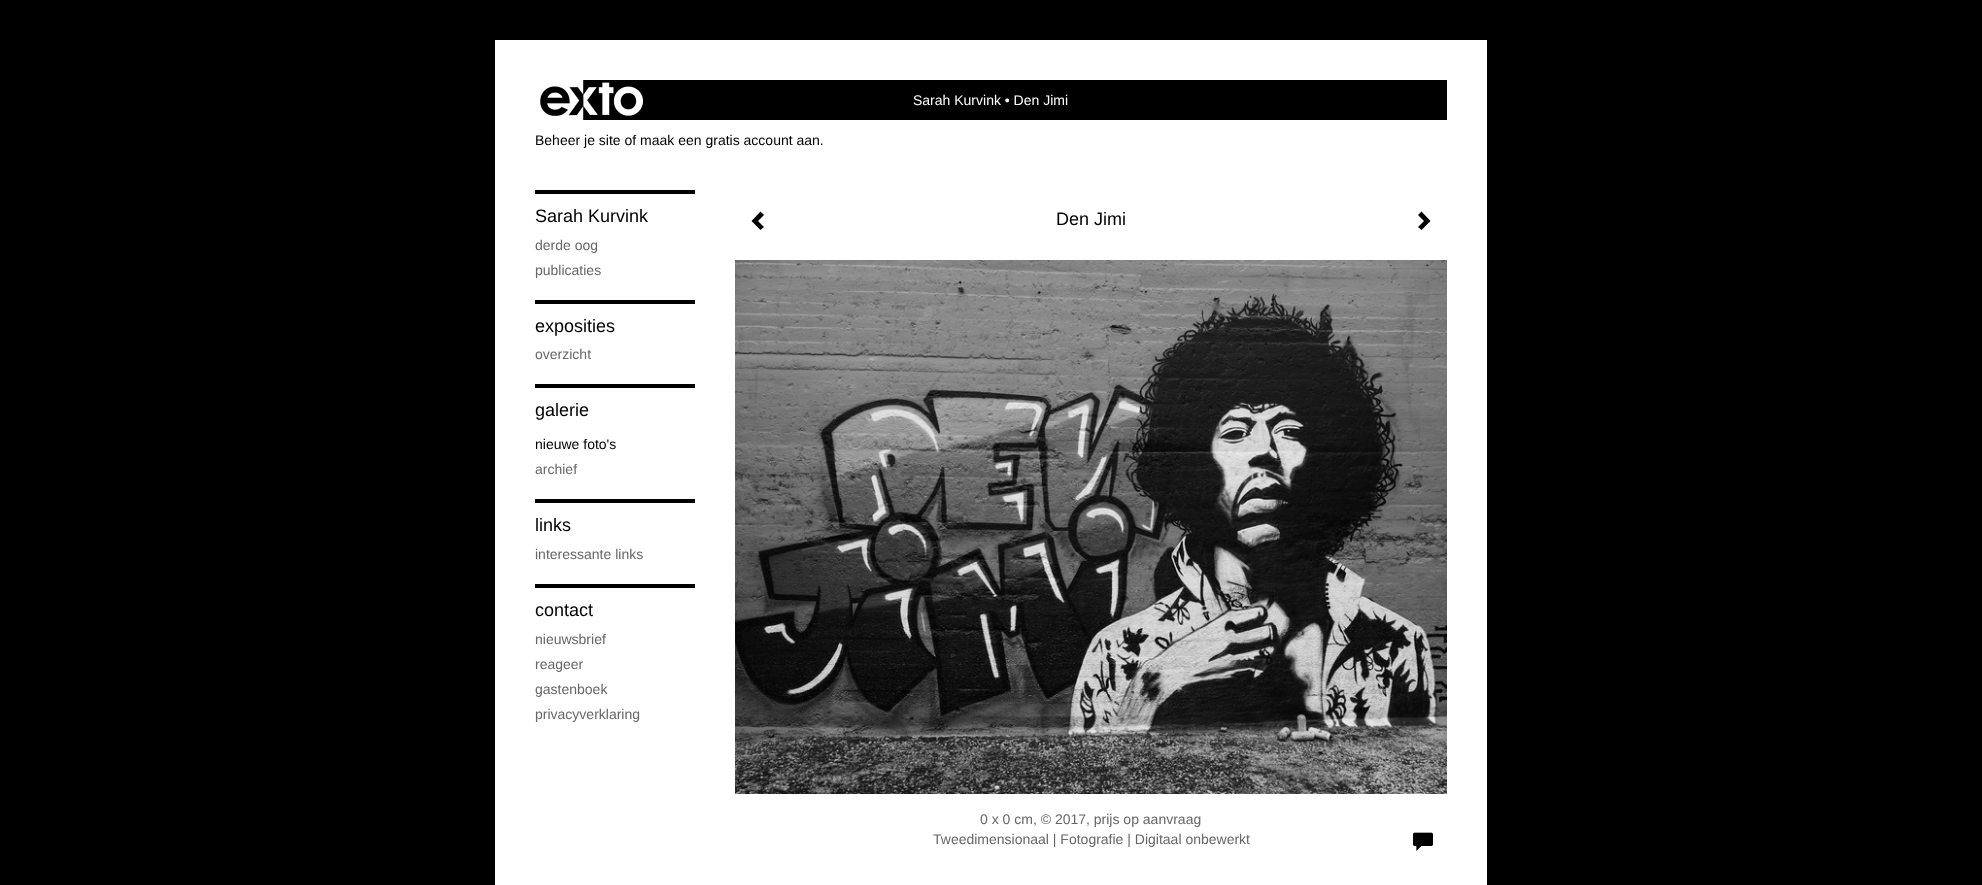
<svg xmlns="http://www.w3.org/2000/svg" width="1982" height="885">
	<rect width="100%" height="100%" fill="#000000" />
	<rect x="495" y="40" width="992" height="845" fill="#FFFFFF" />
	<rect x="540" y="80" width="907" height="40" fill="#000000" />
	<image x="535" y="80" width="108" height="40" href="assets/img1.png" />
	<text x="913" y="105" font-family="Liberation Sans" font-size="14" fill="#FFFFFF">Sarah Kurvink • Den Jimi</text>
	<text x="535" y="145" font-family="Liberation Sans" font-size="14" fill="#000000">Beheer je site of maak een gratis account aan.</text>
	<rect x="535" y="190" width="160" height="4" fill="#000000" />
	<text x="535" y="222" font-family="Liberation Sans" font-size="18" fill="#000000">Sarah Kurvink</text>
	<g font-family="Liberation Sans" font-size="14" fill="#666666">
		<text x="535" y="250">derde oog</text>
		<text x="535" y="275">publicaties</text>
	</g>
	<rect x="535" y="300" width="160" height="4" fill="#000000" />
	<text x="535" y="332" font-family="Liberation Sans" font-size="18" fill="#000000">exposities</text>
	<text x="535" y="359" font-family="Liberation Sans" font-size="14" fill="#666666">overzicht</text>
	<rect x="535" y="384" width="160" height="4" fill="#000000" />
	<text x="535" y="416" font-family="Liberation Sans" font-size="18" fill="#000000">galerie</text>
	<text x="535" y="449" font-family="Liberation Sans" font-size="14" fill="#000000">nieuwe foto's</text>
	<text x="535" y="474" font-family="Liberation Sans" font-size="14" fill="#666666">archief</text>
	<rect x="535" y="499" width="160" height="4" fill="#000000" />
	<text x="535" y="531" font-family="Liberation Sans" font-size="18" fill="#000000">links</text>
	<text x="535" y="559" font-family="Liberation Sans" font-size="14" fill="#666666">interessante links</text>
	<rect x="535" y="584" width="160" height="4" fill="#000000" />
	<text x="535" y="616" font-family="Liberation Sans" font-size="18" fill="#000000">contact</text>
	<g font-family="Liberation Sans" font-size="14" fill="#666666">
		<text x="535" y="644">nieuwsbrief</text>
		<text x="535" y="669">reageer</text>
		<text x="535" y="694">gastenboek</text>
		<text x="535" y="719">privacyverklaring</text>
	</g>
	<path d="M764 215L758 221L764 227L760.5 230L751.5 221L760.5 211.5Z" fill="#000000" />
	<text x="1056" y="225" font-family="Liberation Sans" font-size="18" fill="#000000">Den Jimi</text>
	<path d="M1430.5 221L1421.5 230L1418 227L1424 221L1418 215L1421.5 211.5Z" fill="#000000" />
	<image x="735" y="260" width="712" height="534" href="assets/img2.png" />
	<g font-family="Liberation Sans" font-size="14" fill="#666666">
		<text x="980" y="824">0 x 0 cm, © 2017, prijs op aanvraag</text>
		<text x="933" y="844">Tweedimensionaal | Fotografie | Digitaal onbewerkt</text>
	</g>
	<image x="1413" y="832" width="20" height="19" href="assets/img3.png" />
</svg>
